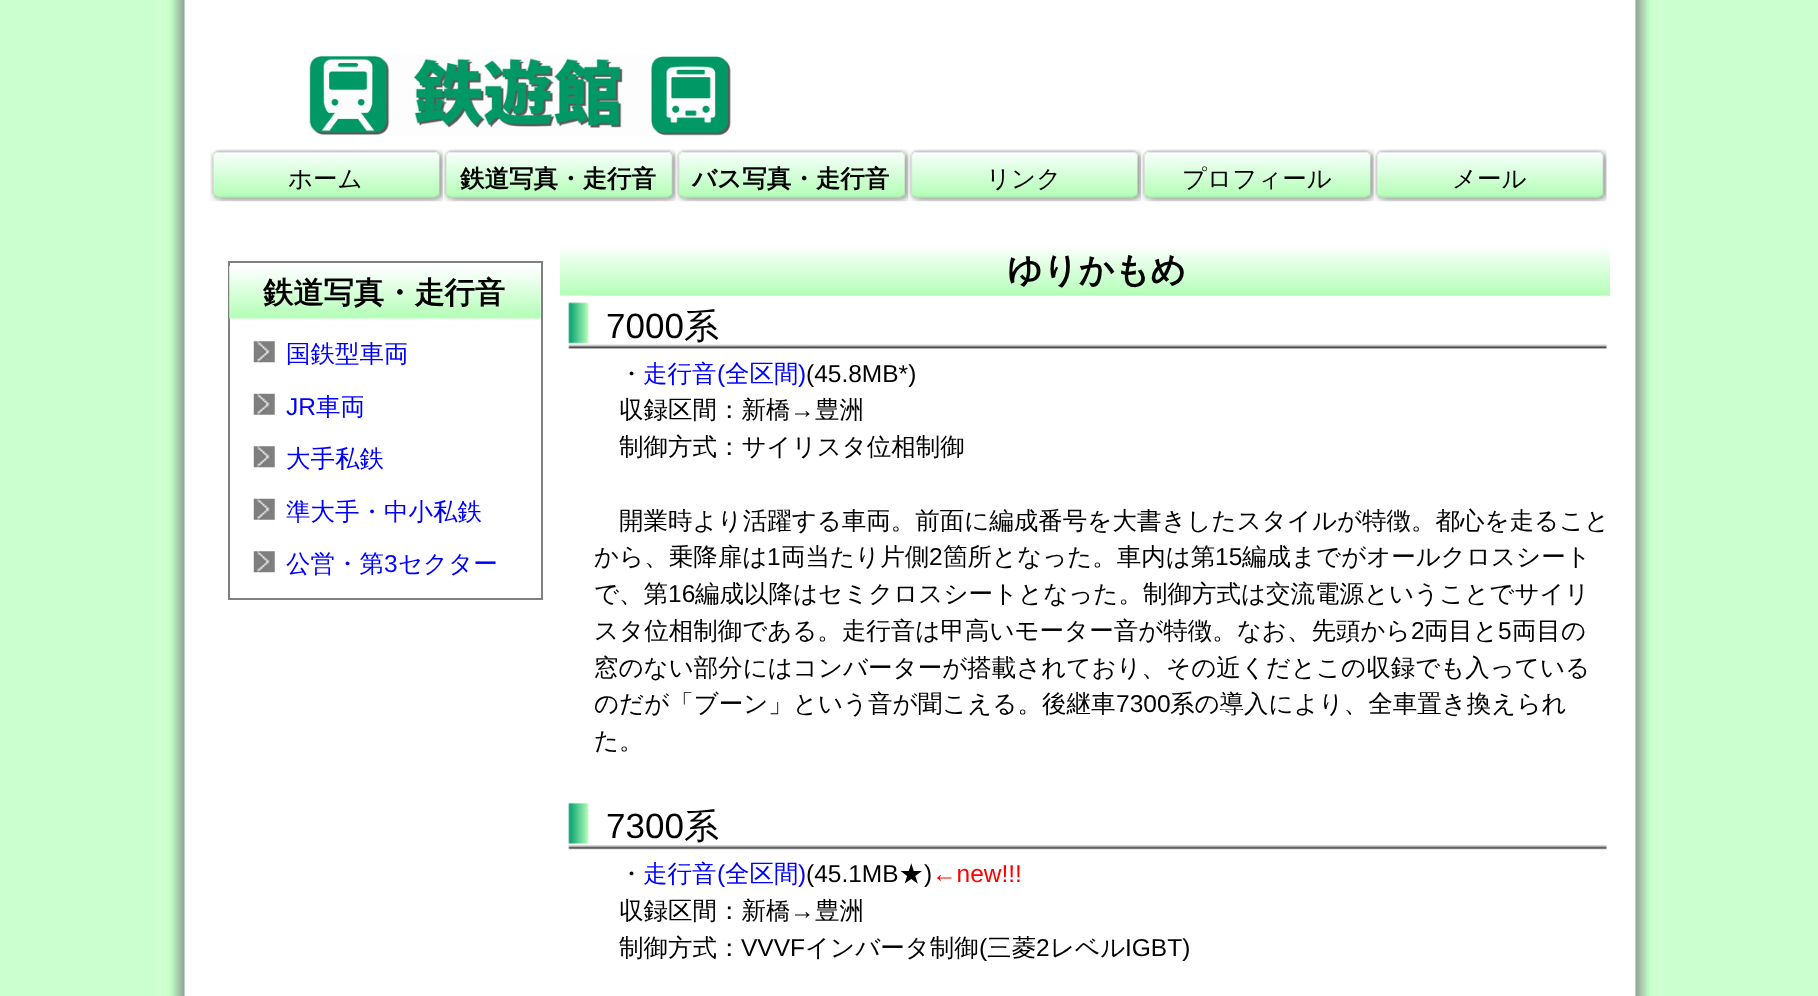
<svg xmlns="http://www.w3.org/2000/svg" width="1818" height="996">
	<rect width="100%" height="100%" fill="#FFFFFF" />
	<image x="0" y="0" width="1818" height="996" href="assets/img1.png" />
	<image x="308" y="54" width="423" height="82" href="assets/img2.png" />
	<image x="210" y="149" width="233" height="53" href="assets/img3.png" />
	<text x="288" y="187" font-family="WenQuanYi Zen Hei" font-size="24.5" font-weight="500" fill="#000000">ホーム</text>
	<image x="443" y="149" width="233" height="53" href="assets/img4.png" />
	<text x="460" y="187" font-family="WenQuanYi Zen Hei" font-size="24.5" font-weight="700" fill="#000000">鉄道写真・走行音</text>
	<image x="675" y="149" width="234" height="53" href="assets/img5.png" />
	<text x="692" y="187" font-family="WenQuanYi Zen Hei" font-size="24.5" font-weight="700" fill="#000000">バス写真・走行音</text>
	<image x="908" y="149" width="233" height="53" href="assets/img6.png" />
	<text x="986" y="187" font-family="WenQuanYi Zen Hei" font-size="24.5" font-weight="500" fill="#000000">リンク</text>
	<image x="1141" y="149" width="233" height="53" href="assets/img3.png" />
	<text x="1182" y="187" font-family="WenQuanYi Zen Hei" font-size="24.5" font-weight="500" fill="#000000">プロフィール</text>
	<image x="1374" y="149" width="233" height="53" href="assets/img7.png" />
	<text x="1452" y="187" font-family="WenQuanYi Zen Hei" font-size="24.5" font-weight="500" fill="#000000">メール</text>
	<rect x="229" y="262" width="313" height="337" fill="none" stroke="#808080" stroke-width="2" />
	<image x="229" y="266" width="312" height="53" href="assets/img8.png" />
	<text x="263" y="303" font-family="WenQuanYi Zen Hei" font-size="30.25" font-weight="700" fill="#000000">鉄道写真・走行音</text>
	<image x="253" y="341" width="22" height="22" href="assets/img9.png" />
	<text x="286" y="362" font-family="WenQuanYi Zen Hei" font-size="24.5" font-weight="500" fill="#0000FF">国鉄型車両</text>
	<image x="253" y="393" width="22" height="22" href="assets/img10.png" />
	<text x="286" y="415" font-family="Liberation Sans" font-size="24.5" fill="#0000FF">JR</text>
	<text x="316" y="415" font-family="WenQuanYi Zen Hei" font-size="24.5" font-weight="500" fill="#0000FF">車両</text>
	<image x="253" y="446" width="22" height="22" href="assets/img9.png" />
	<text x="286" y="467" font-family="WenQuanYi Zen Hei" font-size="24.5" font-weight="500" fill="#0000FF">大手私鉄</text>
	<image x="253" y="498" width="22" height="22" href="assets/img10.png" />
	<text x="286" y="520" font-family="WenQuanYi Zen Hei" font-size="24.5" font-weight="500" fill="#0000FF">準大手・中小私鉄</text>
	<image x="253" y="551" width="22" height="22" href="assets/img9.png" />
	<text x="286" y="572" font-family="WenQuanYi Zen Hei" font-size="24.5" font-weight="500" fill="#0000FF">公営・第</text>
	<text x="384" y="572" font-family="Liberation Sans" font-size="24.5" fill="#0000FF">3</text>
	<text x="398" y="572" font-family="WenQuanYi Zen Hei" font-size="24.5" font-weight="500" fill="#0000FF">セクター</text>
	<image x="560" y="247" width="1050" height="49" href="assets/img11.png" />
	<text x="1007" y="282" font-family="WenQuanYi Zen Hei" font-size="35" font-weight="700" fill="#000000">ゆりかもめ</text>
	<image x="568" y="302" width="1039" height="47" href="assets/img12.png" />
	<text x="606" y="338" font-family="Liberation Sans" font-size="35" fill="#000000">7000</text>
	<text x="684" y="338" font-family="WenQuanYi Zen Hei" font-size="35" font-weight="500" fill="#000000">系</text>
	<text x="619" y="382" font-family="WenQuanYi Zen Hei" font-size="24.5" font-weight="500" fill="#000000">・</text>
	<text x="643" y="382" font-family="WenQuanYi Zen Hei" font-size="24.5" font-weight="500" fill="#0000FF">走行音</text>
	<text x="717" y="382" font-family="Liberation Sans" font-size="24.5" fill="#0000FF">(</text>
	<text x="725" y="382" font-family="WenQuanYi Zen Hei" font-size="24.5" font-weight="500" fill="#0000FF">全区間</text>
	<text x="798" y="382" font-family="Liberation Sans" font-size="24.5" fill="#0000FF">)</text>
	<text x="806" y="382" font-family="Liberation Sans" font-size="24.5" fill="#000000">(45.8MB*)</text>
	<text x="619" y="418" font-family="WenQuanYi Zen Hei" font-size="24.5" font-weight="500" fill="#000000">収録区間：新橋</text>
	<text x="790" y="418" font-family="Liberation Sans" font-size="24.5" fill="#000000">→</text>
	<g font-family="WenQuanYi Zen Hei" font-size="24.5" font-weight="500" fill="#000000">
		<text x="815" y="418">豊洲</text>
		<text x="619" y="455">制御方式：サイリスタ位相制御</text>
		<text x="619" y="529">開業時より活躍する車両。前面に編成番号を大書きしたスタイルが特徴。都心を走ること</text>
		<text x="594" y="565">から、乗降扉は</text>
	</g>
	<text x="767" y="565" font-family="Liberation Sans" font-size="24.5" fill="#000000">1</text>
	<text x="781" y="565" font-family="WenQuanYi Zen Hei" font-size="24.5" font-weight="500" fill="#000000">両当たり片側</text>
	<text x="929" y="565" font-family="Liberation Sans" font-size="24.5" fill="#000000">2</text>
	<text x="943" y="565" font-family="WenQuanYi Zen Hei" font-size="24.5" font-weight="500" fill="#000000">箇所となった。車内は第</text>
	<text x="1215" y="565" font-family="Liberation Sans" font-size="24.5" fill="#000000">15</text>
	<g font-family="WenQuanYi Zen Hei" font-size="24.5" font-weight="500" fill="#000000">
		<text x="1242" y="565">編成までがオールクロスシート</text>
		<text x="594" y="602">で、第</text>
	</g>
	<text x="668" y="602" font-family="Liberation Sans" font-size="24.5" fill="#000000">16</text>
	<g font-family="WenQuanYi Zen Hei" font-size="24.5" font-weight="500" fill="#000000">
		<text x="695" y="602">編成以降はセミクロスシートとなった。制御方式は交流電源ということでサイリ</text>
		<text x="594" y="639">スタ位相制御である。走行音は甲高いモーター音が特徴。なお、先頭から</text>
	</g>
	<text x="1411" y="639" font-family="Liberation Sans" font-size="24.5" fill="#000000">2</text>
	<text x="1424" y="639" font-family="WenQuanYi Zen Hei" font-size="24.5" font-weight="500" fill="#000000">両目と</text>
	<text x="1498" y="639" font-family="Liberation Sans" font-size="24.5" fill="#000000">5</text>
	<g font-family="WenQuanYi Zen Hei" font-size="24.5" font-weight="500" fill="#000000">
		<text x="1512" y="639">両目の</text>
		<text x="594" y="676">窓のない部分にはコンバーターが搭載されており、その近くだとこの収録でも入っている</text>
		<text x="594" y="712">のだが「ブーン」という音が聞こえる。後継車</text>
	</g>
	<text x="1116" y="712" font-family="Liberation Sans" font-size="24.5" fill="#000000">7300</text>
	<g font-family="WenQuanYi Zen Hei" font-size="24.5" font-weight="500" fill="#000000">
		<text x="1170" y="712">系の導入により、全車置き換えられ</text>
		<text x="594" y="749">た。</text>
	</g>
	<image x="568" y="802" width="1039" height="48" href="assets/img13.png" />
	<text x="606" y="838" font-family="Liberation Sans" font-size="35" fill="#000000">7300</text>
	<text x="684" y="838" font-family="WenQuanYi Zen Hei" font-size="35" font-weight="500" fill="#000000">系</text>
	<text x="619" y="882" font-family="WenQuanYi Zen Hei" font-size="24.5" font-weight="500" fill="#000000">・</text>
	<text x="643" y="882" font-family="WenQuanYi Zen Hei" font-size="24.5" font-weight="500" fill="#0000FF">走行音</text>
	<text x="717" y="882" font-family="Liberation Sans" font-size="24.5" fill="#0000FF">(</text>
	<text x="725" y="882" font-family="WenQuanYi Zen Hei" font-size="24.5" font-weight="500" fill="#0000FF">全区間</text>
	<text x="798" y="882" font-family="Liberation Sans" font-size="24.5" fill="#0000FF">)</text>
	<text x="806" y="882" font-family="Liberation Sans" font-size="24.5" fill="#000000">(45.1MB</text>
	<text x="899" y="882" font-family="WenQuanYi Zen Hei" font-size="24.5" font-weight="500" fill="#000000">★</text>
	<text x="924" y="882" font-family="Liberation Sans" font-size="24.5" fill="#000000">)</text>
	<text x="932" y="882" font-family="Liberation Sans" font-size="24.5" fill="#FF0000">←new!!!</text>
	<text x="619" y="919" font-family="WenQuanYi Zen Hei" font-size="24.5" font-weight="500" fill="#000000">収録区間：新橋</text>
	<text x="790" y="919" font-family="Liberation Sans" font-size="24.5" fill="#000000">→</text>
	<g font-family="WenQuanYi Zen Hei" font-size="24.5" font-weight="500" fill="#000000">
		<text x="815" y="919">豊洲</text>
		<text x="619" y="956">制御方式：</text>
	</g>
	<text x="741" y="956" font-family="Liberation Sans" font-size="24.5" fill="#000000">VVVF</text>
	<text x="805" y="956" font-family="WenQuanYi Zen Hei" font-size="24.5" font-weight="500" fill="#000000">インバータ制御</text>
	<text x="979" y="956" font-family="Liberation Sans" font-size="24.5" fill="#000000">(</text>
	<text x="987" y="956" font-family="WenQuanYi Zen Hei" font-size="24.5" font-weight="500" fill="#000000">三菱</text>
	<text x="1036" y="956" font-family="Liberation Sans" font-size="24.5" fill="#000000">2</text>
	<text x="1050" y="956" font-family="WenQuanYi Zen Hei" font-size="24.5" font-weight="500" fill="#000000">レベル</text>
	<text x="1125" y="956" font-family="Liberation Sans" font-size="24.5" fill="#000000">IGBT)</text>
</svg>
